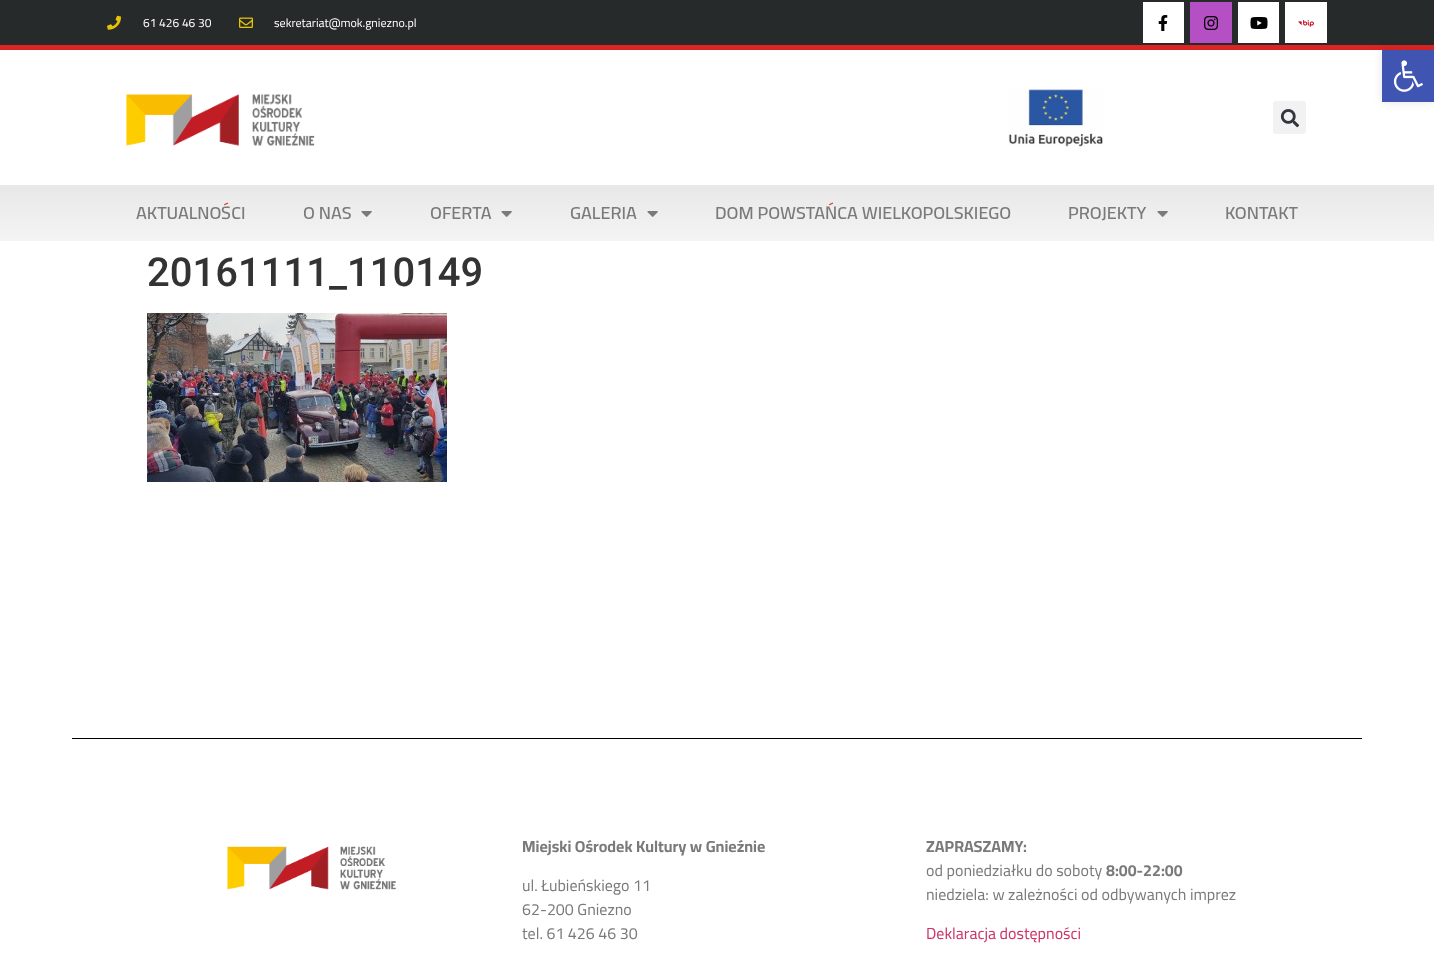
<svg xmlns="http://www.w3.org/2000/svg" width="1434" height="959">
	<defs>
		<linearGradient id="g1" gradientUnits="userSpaceOnUse" x1="717" y1="185" x2="717" y2="241"><stop offset="0" stop-color="#E8E8E8" /><stop offset="1" stop-color="#F4F4F4" /></linearGradient>
	</defs>
	<rect width="100%" height="100%" fill="#FFFFFF" />
	<rect x="0" y="0" width="1434" height="45" fill="#262A2B" />
	<image x="107" y="15" width="14" height="15" href="assets/img1.png" />
	<text x="143" y="27" font-family="Cairo" font-size="12" fill="#FFFFFF">61 426 46 30</text>
	<image x="239" y="17" width="14" height="11" href="assets/img2.png" />
	<text x="274" y="27" font-family="Cairo" font-size="12" fill="#FFFFFF">sekretariat@mok.gniezno.pl</text>
	<rect x="1143" y="2" width="41" height="41" fill="#FFFFFF" />
	<image x="1158" y="15" width="10" height="16" href="assets/img3.png" />
	<rect x="1190" y="2" width="42" height="41" fill="#B550C4" />
	<image x="1204" y="16" width="14" height="14" href="assets/img4.png" />
	<rect x="1238" y="2" width="41" height="41" fill="#FFFFFF" />
	<image x="1250" y="17" width="18" height="12" href="assets/img5.png" />
	<rect x="1285" y="2" width="42" height="41" fill="#FFFFFF" />
	<image x="1298" y="20" width="16" height="7" href="assets/img6.png" />
	<rect x="0" y="45" width="1434" height="5" fill="#DC2424" />
	<image x="126" y="93" width="189" height="53" href="assets/img7.png" />
	<image x="1008" y="89" width="95" height="58" href="assets/img8.png" />
	<rect x="1273" y="101" width="33" height="33" rx="3" fill="#F2F2F2" />
	<image x="1280" y="109" width="19" height="19" href="assets/img9.png" />
	<rect x="0" y="185" width="1434" height="56" fill="url(#g1)" />
	<g font-family="Cairo Play" font-size="18" font-weight="600" fill="#7A7A7A">
		<text x="136" y="219">AKTUALNOŚCI</text>
		<text x="303" y="219">O NAS</text>
	</g>
	<image x="361" y="211" width="11" height="6" href="assets/img10.png" />
	<text x="430" y="219" font-family="Cairo Play" font-size="18" font-weight="600" fill="#7A7A7A">OFERTA</text>
	<image x="501" y="211" width="11" height="6" href="assets/img10.png" />
	<text x="570" y="219" font-family="Cairo Play" font-size="18" font-weight="600" fill="#7A7A7A">GALERIA</text>
	<image x="647" y="211" width="11" height="6" href="assets/img10.png" />
	<g font-family="Cairo Play" font-size="18" font-weight="600" fill="#7A7A7A">
		<text x="715" y="219">DOM POWSTAŃCA WIELKOPOLSKIEGO</text>
		<text x="1068" y="219">PROJEKTY</text>
	</g>
	<image x="1157" y="211" width="11" height="6" href="assets/img10.png" />
	<text x="1225" y="219" font-family="Cairo Play" font-size="18" font-weight="600" fill="#7A7A7A">KONTAKT</text>
	<rect x="1382" y="50" width="52" height="52" fill="#000000" fill-opacity="0.1" filter="blur(5px)" />
	<rect x="1382" y="50" width="52" height="52" fill="#4054B2" />
	<image x="1393" y="60" width="30" height="32" href="assets/img11.png" />
	<text x="147" y="286" font-family="Roboto" font-size="40" font-weight="500" fill="#333333">20161111_110149</text>
	<image x="147" y="313" width="300" height="169" href="assets/img12.png" />
	<rect x="72" y="738" width="1290" height="1" fill="#000000" />
	<image x="227" y="846" width="169" height="44" href="assets/img13.png" />
	<text x="522" y="852" font-family="Cairo" font-size="16" font-weight="700" fill="#7A7A7A">Miejski Ośrodek Kultury w Gnieźnie</text>
	<g font-family="Cairo" font-size="16" fill="#7A7A7A">
		<text x="522" y="891">ul. Łubieńskiego 11</text>
		<text x="522" y="915">62-200 Gniezno</text>
		<text x="522" y="939">tel. 61 426 46 30</text>
	</g>
	<text x="926" y="852" font-family="Cairo" font-size="16" font-weight="700" fill="#7A7A7A">ZAPRASZAMY:</text>
	<text x="926" y="876" font-family="Cairo" font-size="16" fill="#7A7A7A">od poniedziałku do soboty</text>
	<text x="1106" y="876" font-family="Cairo" font-size="16" font-weight="700" fill="#7A7A7A">8:00-22:00</text>
	<text x="926" y="900" font-family="Cairo" font-size="16" fill="#7A7A7A">niedziela: w zależności od odbywanych imprez</text>
	<text x="926" y="939" font-family="Cairo" font-size="16" fill="#CC3366">Deklaracja dostępności</text>
</svg>
